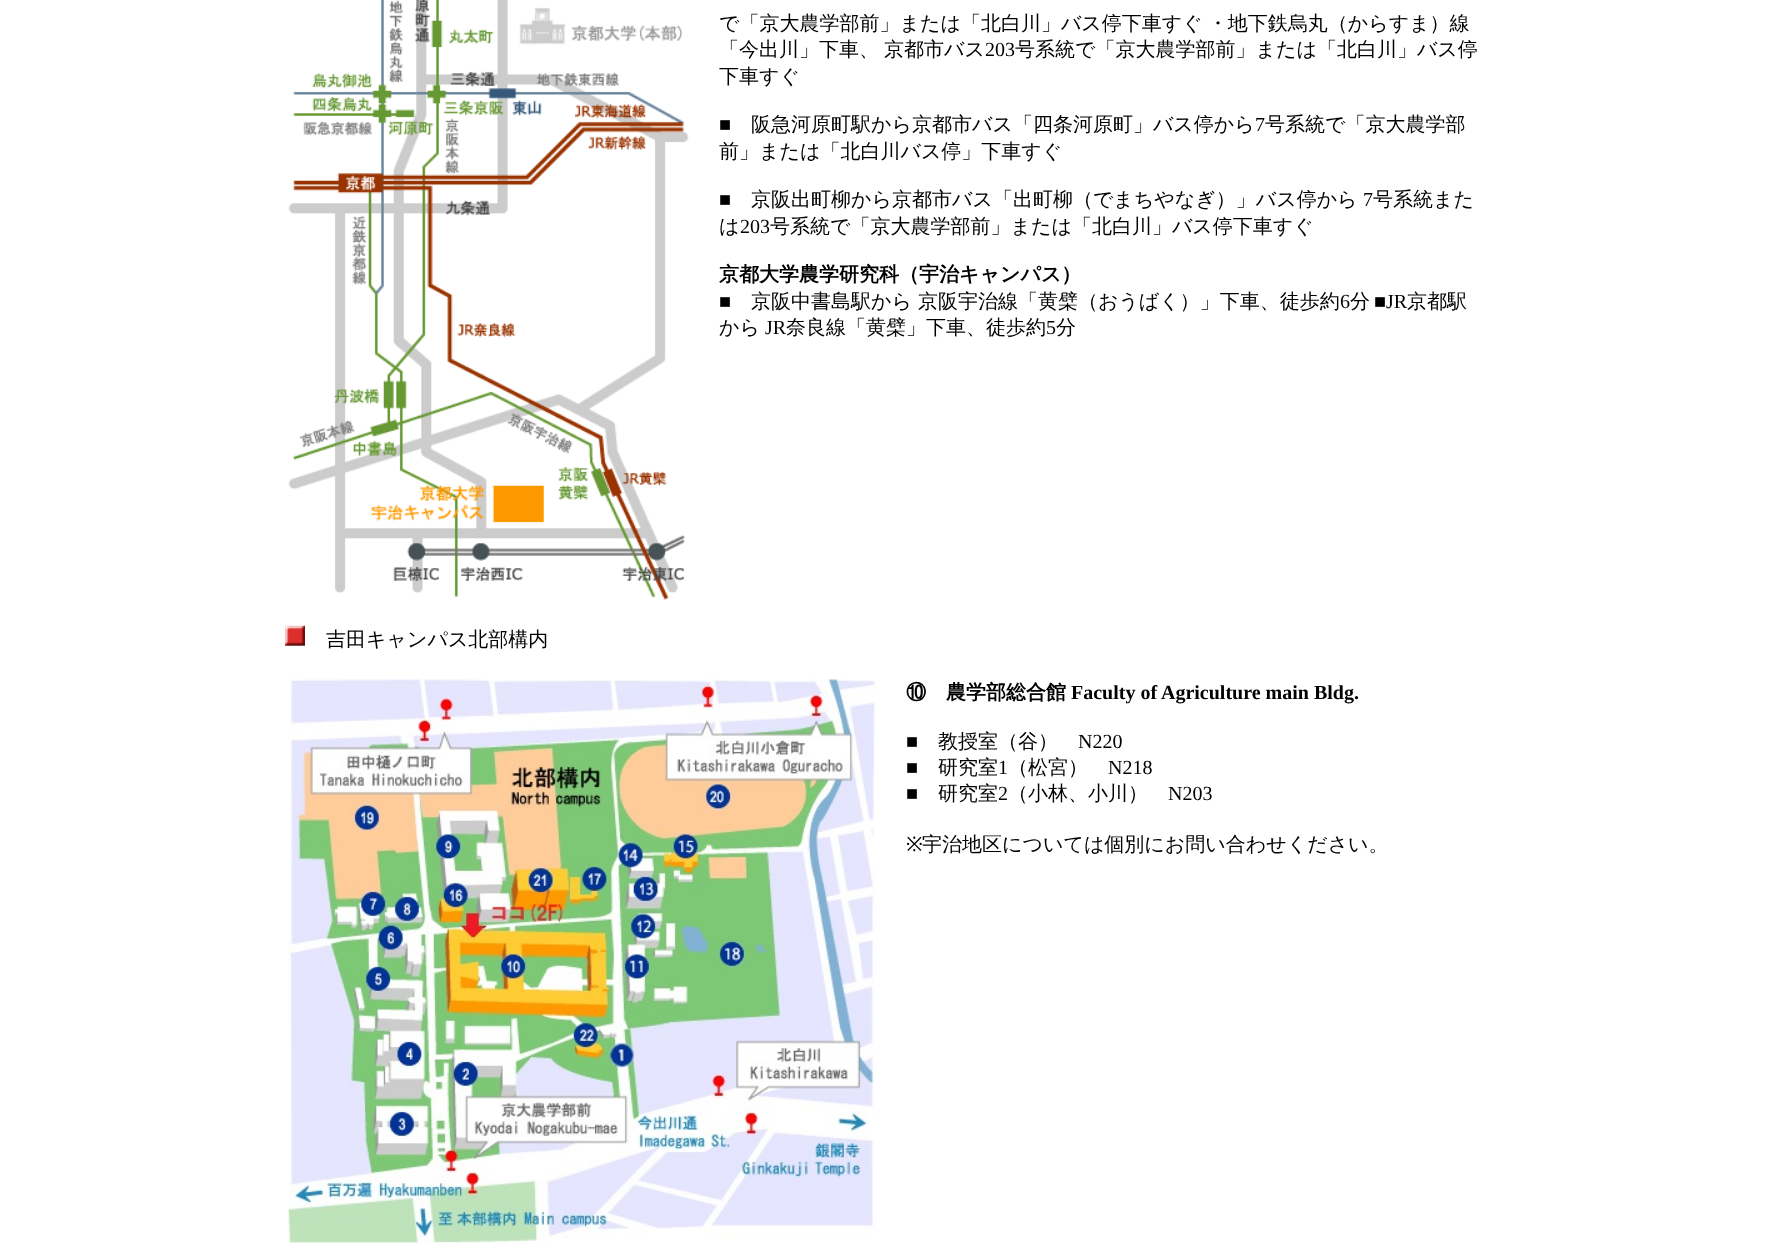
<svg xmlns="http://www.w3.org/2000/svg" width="1772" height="1252">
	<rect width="100%" height="100%" fill="#FFFFFF" />
	<image x="288" y="0" width="401" height="600" href="assets/img1.png" />
	<g font-family="WenQuanYi Zen Hei" font-size="20" font-weight="500" fill="#000000">
		<text x="719" y="30" word-spacing="-1">で「京大農学部前」または「北白川」バス停下車すぐ ・地下鉄烏丸（からすま）線</text>
		<text x="719" y="56">「今出川」下車、</text>
		<text x="884" y="56">京都市バス</text>
	</g>
	<text x="985" y="56" font-family="Liberation Serif" font-size="20" fill="#000000">203</text>
	<g font-family="WenQuanYi Zen Hei" font-size="20" font-weight="500" fill="#000000">
		<text x="1015" y="56">号系統で「京大農学部前」または「北白川」バス停</text>
		<text x="719" y="83">下車すぐ</text>
	</g>
	<text x="719" y="131" font-family="Liberation Serif" font-size="20" fill="#000000">■</text>
	<text x="751" y="131" font-family="WenQuanYi Zen Hei" font-size="20" font-weight="500" fill="#000000">阪急河原町駅から京都市バス「四条河原町」バス停から</text>
	<text x="1255" y="131" font-family="Liberation Serif" font-size="20" fill="#000000">7</text>
	<g font-family="WenQuanYi Zen Hei" font-size="20" font-weight="500" fill="#000000">
		<text x="1265" y="131">号系統で「京大農学部</text>
		<text x="719" y="158">前」または「北白川バス停」下車すぐ</text>
	</g>
	<text x="719" y="206" font-family="Liberation Serif" font-size="20" fill="#000000">■</text>
	<text x="751" y="206" font-family="WenQuanYi Zen Hei" font-size="20" font-weight="500" fill="#000000">京阪出町柳から京都市バス「出町柳（でまちやなぎ）」バス停から</text>
	<text x="1363" y="206" font-family="Liberation Serif" font-size="20" fill="#000000">7</text>
	<g font-family="WenQuanYi Zen Hei" font-size="20" font-weight="500" fill="#000000">
		<text x="1373" y="206">号系統また</text>
		<text x="719" y="233">は</text>
	</g>
	<text x="740" y="233" font-family="Liberation Serif" font-size="20" fill="#000000">203</text>
	<text x="770" y="233" font-family="WenQuanYi Zen Hei" font-size="20" font-weight="500" fill="#000000">号系統で「京大農学部前」または「北白川」バス停下車すぐ</text>
	<text x="719" y="281" font-family="WenQuanYi Zen Hei" font-size="20" font-weight="700" fill="#000000">京都大学農学研究科（宇治キャンパス）</text>
	<text x="719" y="308" font-family="Liberation Serif" font-size="20" fill="#000000">■</text>
	<text x="751" y="308" font-family="WenQuanYi Zen Hei" font-size="20" font-weight="500" fill="#000000">京阪中書島駅から 京阪宇治線「黄檗（おうばく）」下車、徒歩約</text>
	<text x="1340" y="308" font-family="Liberation Serif" font-size="20" fill="#000000">6</text>
	<text x="1350" y="308" font-family="WenQuanYi Zen Hei" font-size="20" font-weight="500" fill="#000000">分</text>
	<text x="1374" y="308" font-family="Liberation Serif" font-size="20" fill="#000000">■JR</text>
	<g font-family="WenQuanYi Zen Hei" font-size="20" font-weight="500" fill="#000000">
		<text x="1407" y="308">京都駅</text>
		<text x="719" y="334">から</text>
	</g>
	<text x="765" y="334" font-family="Liberation Serif" font-size="20" fill="#000000">JR</text>
	<text x="786" y="334" font-family="WenQuanYi Zen Hei" font-size="20" font-weight="500" fill="#000000">奈良線「黄檗」下車、徒歩約</text>
	<text x="1046" y="334" font-family="Liberation Serif" font-size="20" fill="#000000">5</text>
	<text x="1056" y="334" font-family="WenQuanYi Zen Hei" font-size="20" font-weight="500" fill="#000000">分</text>
	<image x="285" y="625" width="20" height="21" href="assets/img2.png" />
	<text x="326" y="646" font-family="WenQuanYi Zen Hei" font-size="20" font-weight="500" fill="#000000">吉田キャンパス北部構内</text>
	<image x="288" y="679" width="587" height="565" href="assets/img3.png" />
	<text x="906" y="699" font-family="WenQuanYi Zen Hei" font-size="20" font-weight="700" fill="#000000">⑩　農学部総合館</text>
	<text x="1071" y="699" font-family="Liberation Serif" font-size="20" font-weight="700" fill="#000000">Faculty of Agriculture main Bldg.</text>
	<text x="906" y="748" font-family="Liberation Serif" font-size="20" fill="#000000">■</text>
	<text x="938" y="748" font-family="WenQuanYi Zen Hei" font-size="20" font-weight="500" fill="#000000">教授室（谷）</text>
	<g font-family="Liberation Serif" font-size="20" fill="#000000">
		<text x="1078" y="748">N220</text>
		<text x="906" y="774">■</text>
	</g>
	<text x="938" y="774" font-family="WenQuanYi Zen Hei" font-size="20" font-weight="500" fill="#000000">研究室</text>
	<text x="998" y="774" font-family="Liberation Serif" font-size="20" fill="#000000">1</text>
	<text x="1008" y="774" font-family="WenQuanYi Zen Hei" font-size="20" font-weight="500" fill="#000000">（松宮）</text>
	<g font-family="Liberation Serif" font-size="20" fill="#000000">
		<text x="1108" y="774">N218</text>
		<text x="906" y="800">■</text>
	</g>
	<text x="938" y="800" font-family="WenQuanYi Zen Hei" font-size="20" font-weight="500" fill="#000000">研究室</text>
	<text x="998" y="800" font-family="Liberation Serif" font-size="20" fill="#000000">2</text>
	<text x="1008" y="800" font-family="WenQuanYi Zen Hei" font-size="20" font-weight="500" fill="#000000">（小林、小川）</text>
	<text x="1168" y="800" font-family="Liberation Serif" font-size="20" fill="#000000">N203</text>
	<text x="906" y="851" font-family="Noto Sans" font-size="20" fill="#000000">※</text>
	<text x="922" y="851" font-family="WenQuanYi Zen Hei" font-size="20" font-weight="500" fill="#000000">宇治地区については個別にお問い合わせください。</text>
</svg>
